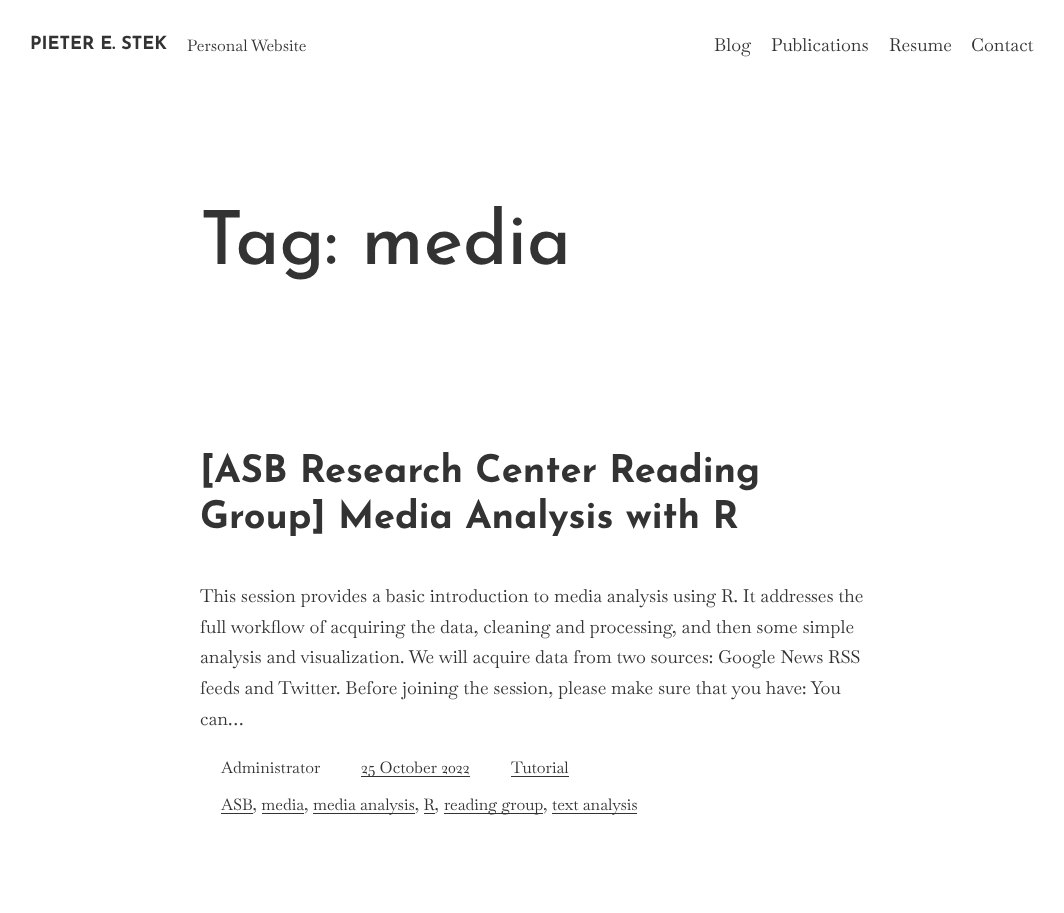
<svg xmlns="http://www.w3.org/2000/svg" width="1064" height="913">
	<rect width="100%" height="100%" fill="#FFFFFF" />
	<text x="30" y="49" font-family="Josefin Sans" font-size="18" font-weight="700" fill="#333333">PIETER E. STEK</text>
	<text x="187" y="51" font-family="Baskervville" font-size="16" fill="#333333">Personal Website</text>
	<g font-family="Baskervville" font-size="18" fill="#333333">
		<text x="714" y="51">Blog</text>
		<text x="771" y="51">Publications</text>
		<text x="889" y="51">Resume</text>
		<text x="971" y="51">Contact</text>
	</g>
	<text x="200" y="264" font-family="Josefin Sans" font-size="74.5" font-weight="500" fill="#333333">Tag: media</text>
	<g font-family="Josefin Sans" font-size="38" font-weight="700" fill="#333333">
		<text x="200" y="482">[ASB Research Center Reading</text>
		<text x="200" y="528">Group] Media Analysis with R</text>
	</g>
	<g font-family="Baskervville" font-size="18" fill="#333333">
		<text x="200" y="602">This session provides a basic introduction to media analysis using R. It addresses the</text>
		<text x="200" y="633">full workflow of acquiring the data, cleaning and processing, and then some simple</text>
		<text x="200" y="663">analysis and visualization. We will acquire data from two sources: Google News RSS</text>
		<text x="200" y="694">feeds and Twitter. Before joining the session, please make sure that you have: You</text>
		<text x="200" y="725">can…</text>
	</g>
	<text x="221" y="773" font-family="Baskervville" font-size="16" fill="#333333">Administrator</text>
	<rect x="361" y="776" width="109" height="1" fill="#333333" />
	<g font-family="Baskervville" font-size="16" fill="#333333">
		<text x="361" y="773">25 October 2022</text>
		<text x="511" y="773">Tutorial</text>
	</g>
	<rect x="511" y="776" width="58" height="1" fill="#333333" />
	<rect x="221" y="813" width="32" height="1" fill="#333333" />
	<text x="221" y="810" font-family="Baskervville" font-size="16" fill="#333333">ASB, media,</text>
	<rect x="313" y="813" width="102" height="1" fill="#333333" />
	<text x="313" y="810" font-family="Baskervville" font-size="16" fill="#333333">media analysis, R,</text>
	<rect x="444" y="813" width="99" height="1" fill="#333333" />
	<text x="444" y="810" font-family="Baskervville" font-size="16" fill="#333333">reading group,</text>
	<rect x="552" y="813" width="85" height="1" fill="#333333" />
	<text x="552" y="810" font-family="Baskervville" font-size="16" fill="#333333">text analysis</text>
	<rect x="262" y="813" width="42" height="1" fill="#333333" />
	<rect x="424" y="813" width="11" height="1" fill="#333333" />
</svg>
